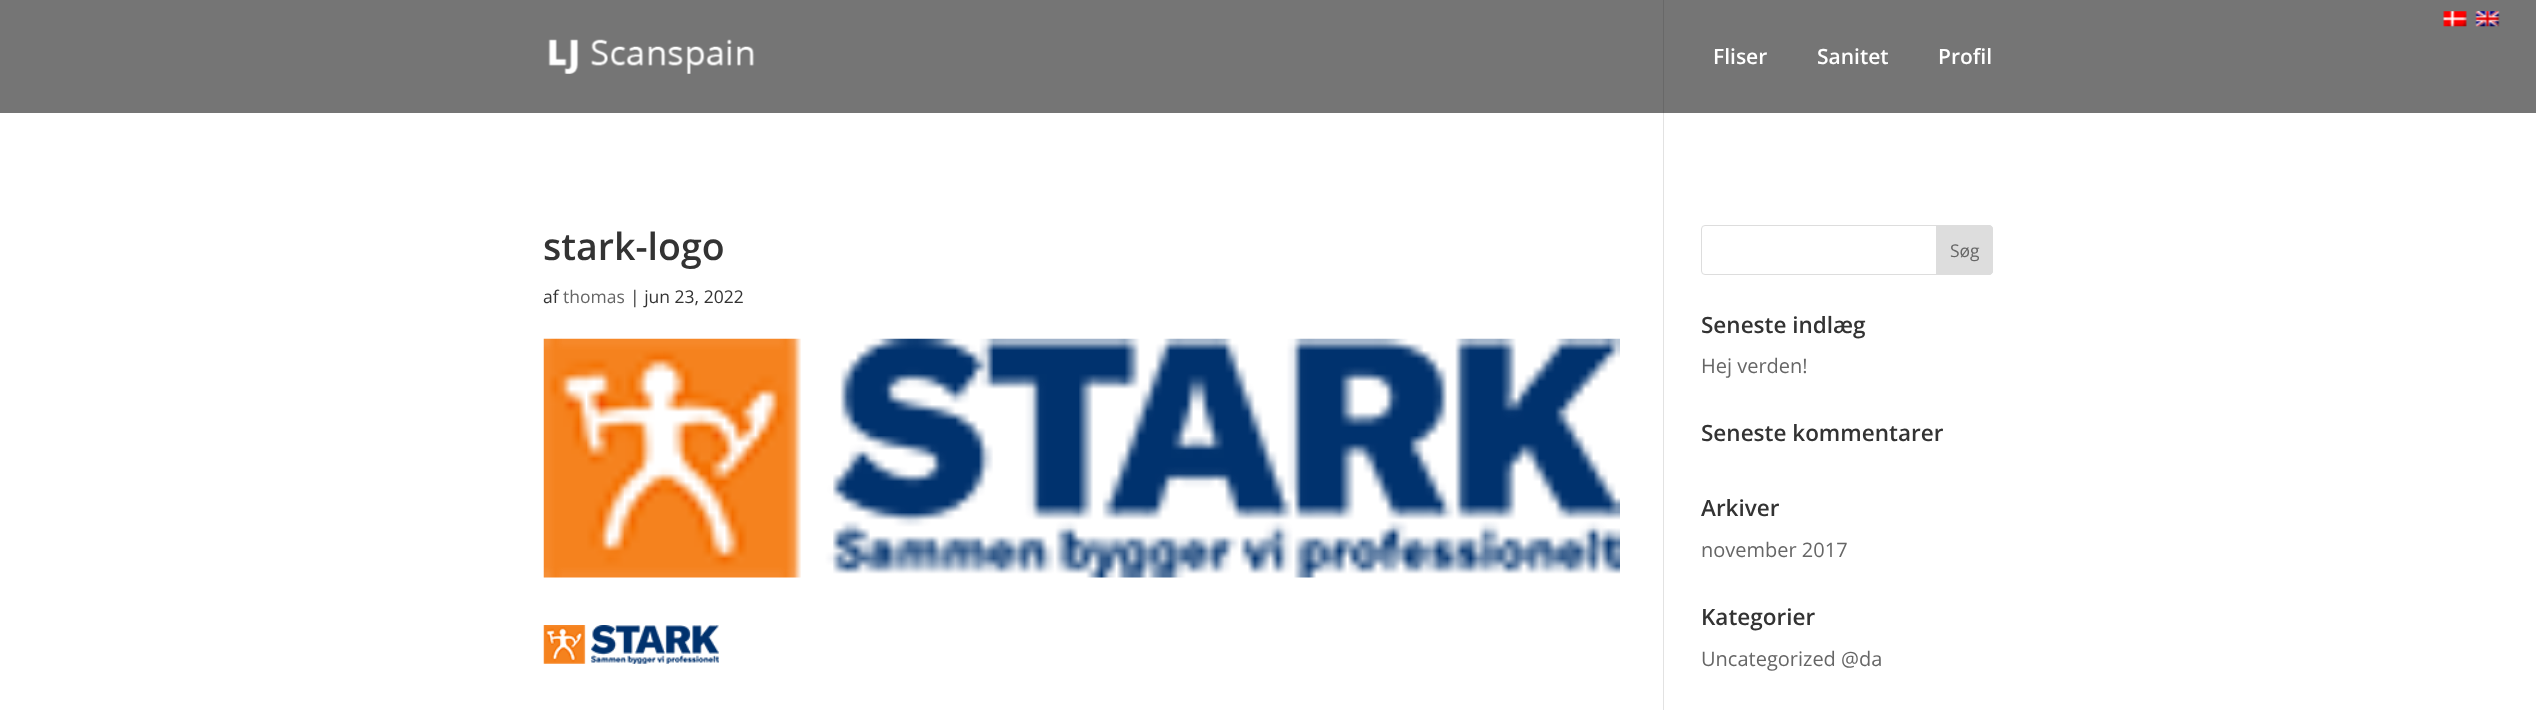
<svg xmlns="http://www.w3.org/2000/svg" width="2536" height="710">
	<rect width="100%" height="100%" fill="#FFFFFF" />
	<rect x="0" y="0" width="2536" height="113" fill="#757575" />
	<image x="2443" y="11" width="24" height="16" href="assets/img1.png" />
	<image x="2475" y="11" width="25" height="16" href="assets/img2.png" />
	<image x="548" y="39" width="207" height="35" href="assets/img3.png" />
	<g font-family="Open Sans" font-size="21" font-weight="600" fill="#FFFFFF">
		<text x="1713" y="64">Fliser</text>
		<text x="1817" y="64">Sanitet</text>
		<text x="1938" y="64">Profil</text>
	</g>
	<rect x="1663" y="113" width="1" height="597" fill="#E2E2E2" />
	<rect x="1663" y="0" width="1" height="113" fill="#686868" />
	<text x="543" y="260" font-family="Open Sans" font-size="37.5" font-weight="600" fill="#333333">stark-logo</text>
	<text x="543" y="303" font-family="Open Sans" font-size="17.5" fill="#333333">af</text>
	<text x="563" y="303" font-family="Open Sans" font-size="17.5" fill="#666666">thomas</text>
	<text x="630" y="303" font-family="Open Sans" font-size="17.5" fill="#333333">| jun 23, 2022</text>
	<image x="543" y="338" width="1077" height="240" href="assets/img4.png" />
	<image x="543" y="625" width="176" height="39" href="assets/img5.png" />
	<rect x="1701.5" y="225.5" width="291" height="49" rx="3.5" fill="none" stroke="#DDDDDD" />
	<path d="M1936.5 225.5H1989C1991 225.5 1992.5 227 1992.5 229V271C1992.5 273 1991 274.5 1989 274.5H1936.5Z" fill="#DDDDDD" stroke="#DDDDDD" />
	<text x="1950" y="257" font-family="Open Sans" font-size="17.5" fill="#666666">Søg</text>
	<text x="1701" y="333" font-family="Open Sans" font-size="22.5" font-weight="600" fill="#333333">Seneste indlæg</text>
	<text x="1701" y="373" font-family="Open Sans" font-size="20" fill="#666666">Hej verden!</text>
	<g font-family="Open Sans" font-size="22.5" font-weight="600" fill="#333333">
		<text x="1701" y="441">Seneste kommentarer</text>
		<text x="1701" y="516">Arkiver</text>
	</g>
	<text x="1701" y="557" font-family="Open Sans" font-size="20" fill="#666666">november 2017</text>
	<text x="1701" y="625" font-family="Open Sans" font-size="22.5" font-weight="600" fill="#333333">Kategorier</text>
	<text x="1701" y="666" font-family="Open Sans" font-size="20" fill="#666666">Uncategorized @da</text>
</svg>
